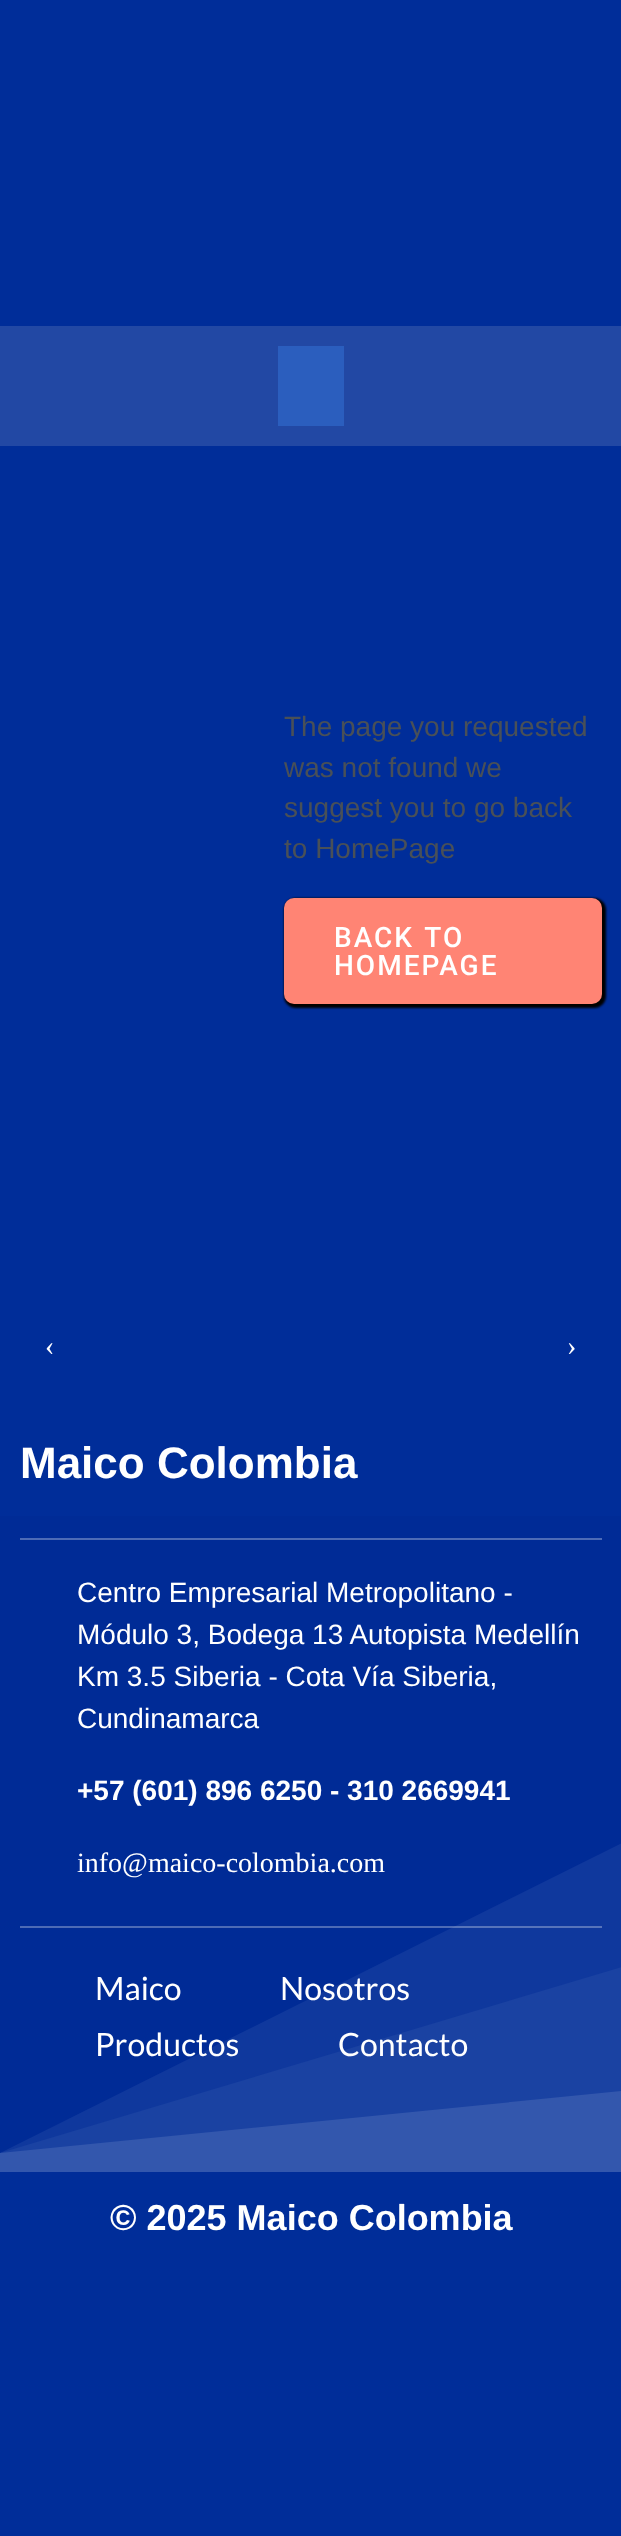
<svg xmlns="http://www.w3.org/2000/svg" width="621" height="2536">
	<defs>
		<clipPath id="clip1"><rect x="0" y="1760" width="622" height="412" /></clipPath>
	</defs>
	<rect width="100%" height="100%" fill="#002D99" />
	<rect x="0" y="326" width="621" height="120" fill="#2248A4" />
	<rect x="278" y="346" width="66" height="80" fill="#2B5EBE" />
	<g font-family="Liberation Sans" font-size="28" fill="#495057">
		<text x="284" y="736">The page you requested</text>
		<text x="284" y="777">was not found we</text>
		<text x="284" y="817">suggest you to go back</text>
		<text x="284" y="858">to HomePage</text>
	</g>
	<rect x="284" y="898" width="322" height="110" rx="12" fill="#000000" filter="blur(1px)" />
	<rect x="284" y="898" width="318" height="106" rx="10" fill="#FF8474" />
	<g font-family="Roboto" font-size="28" font-weight="500" letter-spacing="2" fill="#FFFFFF">
		<text x="334" y="947" word-spacing="2">BACK TO</text>
		<text x="334" y="975">HOMEPAGE</text>
	</g>
	<g font-family="Liberation Serif" font-size="28" fill="#FFFFFF">
		<text x="45" y="1355">‹</text>
		<text x="567" y="1355">›</text>
	</g>
	<text x="20" y="1478" font-family="Liberation Sans" font-size="44" font-weight="700" fill="#FFFFFF">Maico Colombia</text>
	<rect x="0" y="1516" width="621" height="637" fill="#002B96" />
	<rect x="20" y="1538" width="582" height="2" fill="#4D6BB6" />
	<g font-family="Liberation Sans" font-size="28" fill="#FFFFFF">
		<text x="77" y="1602">Centro Empresarial Metropolitano -</text>
		<text x="77" y="1644">Módulo 3, Bodega 13 Autopista Medellín</text>
		<text x="77" y="1686">Km 3.5 Siberia - Cota Vía Siberia,</text>
		<text x="77" y="1728">Cundinamarca</text>
	</g>
	<text x="77" y="1800" font-family="Liberation Sans" font-size="28" font-weight="700" fill="#FFFFFF">+57 (601) 896 6250 - 310 2669941</text>
	<g clip-path="url(#clip1)">
		<path d="M0 2153V2174H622V1843Z" fill="#0F389D" />
	</g>
	<text x="77" y="1872" font-family="Liberation Serif" font-size="28" fill="#FFFFFF">info@maico-colombia.com</text>
	<rect x="20" y="1926" width="582" height="2" fill="#FFFFFF" fill-opacity="0.3" />
	<g clip-path="url(#clip1)">
		<path d="M0 2153V2174H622V1967Z" fill="#1A42A2" />
	</g>
	<g font-family="Lato" font-size="32" fill="#FFFFFF">
		<text x="95" y="2000">Maico</text>
		<text x="280" y="2000">Nosotros</text>
		<text x="95" y="2056">Productos</text>
		<text x="338" y="2056">Contacto</text>
	</g>
	<g clip-path="url(#clip1)">
		<path d="M0 2153V2174H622V2091Z" fill="#3357AD" />
	</g>
	<text x="110" y="2230" font-family="Liberation Sans" font-size="36" font-weight="700" fill="#FFFFFF">© 2025 Maico Colombia</text>
</svg>
